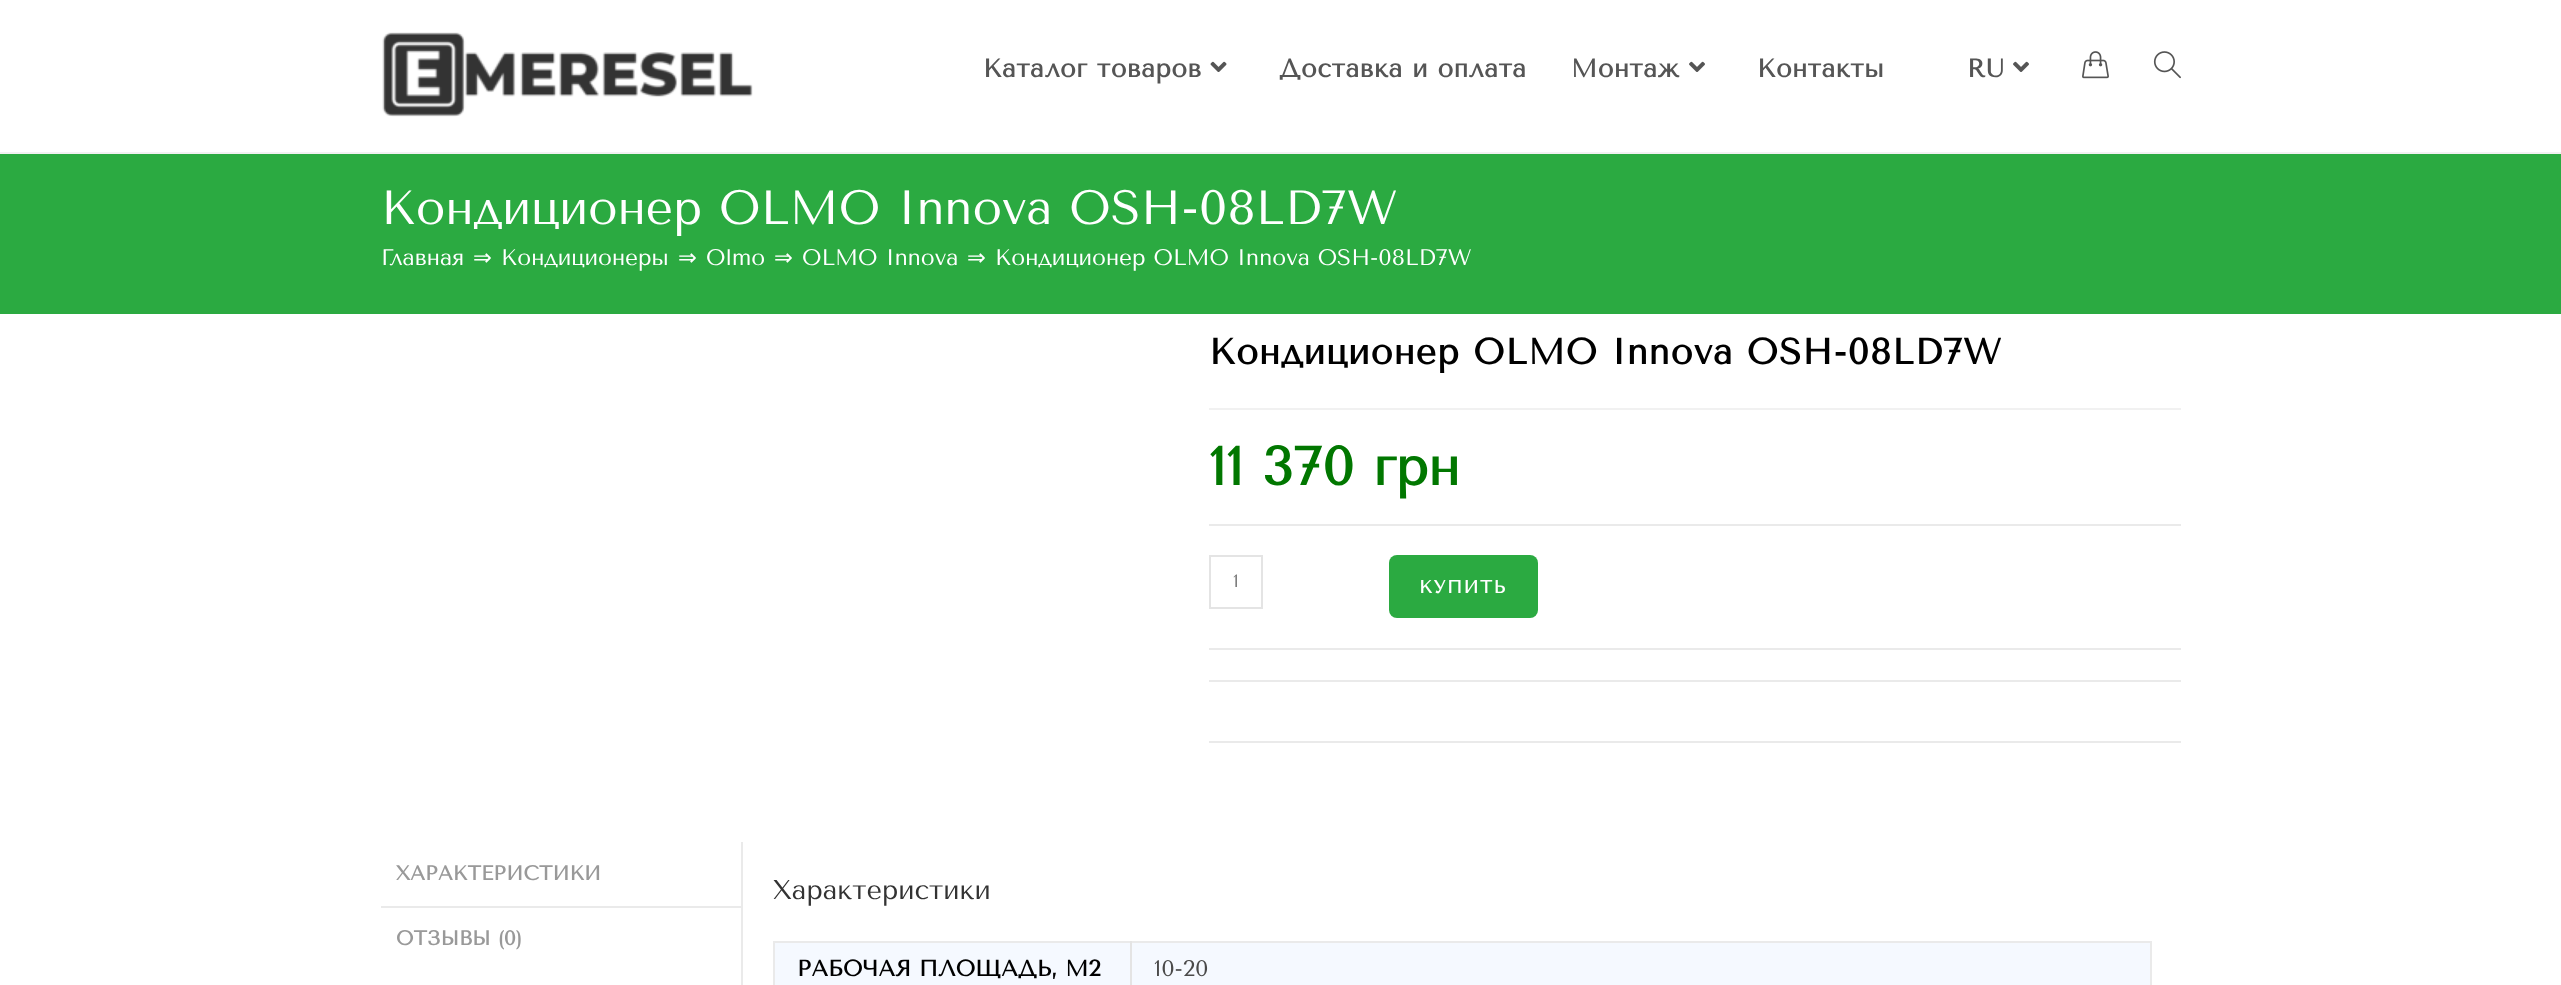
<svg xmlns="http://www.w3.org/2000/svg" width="2561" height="985">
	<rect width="100%" height="100%" fill="#FFFFFF" />
	<rect x="0" y="152" width="2561" height="2" fill="#F1F1F1" />
	<image x="382" y="32" width="371" height="85" href="assets/img1.png" />
	<text x="983" y="77" font-family="Tenor Sans" font-size="25.5" font-weight="700" letter-spacing="0.5" fill="#555555">Каталог товаров</text>
	<image x="1210" y="61" width="17" height="11" href="assets/img2.png" />
	<g font-family="Tenor Sans" font-size="25.5" font-weight="700" letter-spacing="0.5" fill="#555555">
		<text x="1279" y="77">Доставка и оплата</text>
		<text x="1571" y="77">Монтаж</text>
	</g>
	<image x="1689" y="61" width="16" height="11" href="assets/img3.png" />
	<g font-family="Tenor Sans" font-size="25.5" font-weight="700" letter-spacing="0.5" fill="#555555">
		<text x="1757" y="77">Контакты</text>
		<text x="1967" y="77">RU</text>
	</g>
	<image x="2013" y="61" width="16" height="11" href="assets/img3.png" />
	<image x="2082" y="51" width="27" height="28" href="assets/img4.png" />
	<image x="2153" y="51" width="28" height="28" href="assets/img5.png" />
	<rect x="0" y="154" width="2561" height="160" fill="#2BAA41" />
	<text x="381" y="224" font-family="Tenor Sans" font-size="48" fill="#FFFFFF">Кондиционер OLMO Innova OSH-08LD7W</text>
	<text x="381" y="265" font-family="Tenor Sans" font-size="22.5" fill="#FFFFFF">Главная</text>
	<text x="473" y="265" font-family="DejaVu Sans" font-size="22.5" fill="#FFFFFF">⇒</text>
	<text x="501" y="265" font-family="Tenor Sans" font-size="22.5" fill="#FFFFFF">Кондиционеры</text>
	<text x="678" y="265" font-family="DejaVu Sans" font-size="22.5" fill="#FFFFFF">⇒</text>
	<text x="706" y="265" font-family="Tenor Sans" font-size="22.5" fill="#FFFFFF">Olmo</text>
	<text x="774" y="265" font-family="DejaVu Sans" font-size="22.5" fill="#FFFFFF">⇒</text>
	<text x="802" y="265" font-family="Tenor Sans" font-size="22.5" fill="#FFFFFF">OLMO Innova</text>
	<text x="967" y="265" font-family="DejaVu Sans" font-size="22.5" fill="#FFFFFF">⇒</text>
	<text x="995" y="265" font-family="Tenor Sans" font-size="22.5" fill="#FFFFFF">Кондиционер OLMO Innova OSH-08LD7W</text>
	<rect x="1209" y="408" width="972" height="2" fill="#F1F1F1" />
	<text x="1209" y="364" font-family="Tenor Sans" font-size="36" font-weight="700" letter-spacing="0.9" fill="#000000">Кондиционер OLMO Innova OSH-08LD7W</text>
	<text x="1209" y="485" font-family="Tenor Sans" font-size="54" font-weight="700" fill="#017700">11 370 грн</text>
	<rect x="1209" y="524" width="972" height="2" fill="#EAEAEA" />
	<rect x="1209" y="648" width="972" height="2" fill="#EAEAEA" />
	<rect x="1210" y="556" width="52" height="52" fill="none" stroke="#E4E4E4" stroke-width="2" />
	<text x="1233" y="587" font-family="Tenor Sans" font-size="18" fill="#777777">1</text>
	<rect x="1389" y="555" width="149" height="63" rx="8" fill="#2BAA41" />
	<text x="1419" y="593" font-family="Tenor Sans" font-size="18" font-weight="700" letter-spacing="1.5" fill="#FFFFFF">КУПИТЬ</text>
	<rect x="1209" y="680" width="972" height="2" fill="#EAEAEA" />
	<rect x="1209" y="741" width="972" height="2" fill="#EAEAEA" />
	<text x="396" y="880" font-family="Tenor Sans" font-size="20.25" font-weight="700" fill="#999999">ХАРАКТЕРИСТИКИ</text>
	<rect x="381" y="906" width="360" height="2" fill="#EAEAEA" />
	<text x="396" y="945" font-family="Tenor Sans" font-size="20.25" font-weight="700" fill="#999999">ОТЗЫВЫ (0)</text>
	<rect x="741" y="842" width="2" height="143" fill="#EAEAEA" />
	<text x="773" y="899" font-family="Tenor Sans" font-size="27" fill="#333333">Характеристики</text>
	<rect x="775" y="943" width="355" height="42" fill="#F5F9FF" />
	<rect x="773" y="941" width="1378" height="2" fill="#EAEAEA" />
	<rect x="1130" y="941" width="2" height="44" fill="#E4E4E4" />
	<rect x="773" y="941" width="2" height="44" fill="#EAEAEA" />
	<text x="797" y="976" font-family="Tenor Sans" font-size="22.5" font-weight="700" fill="#000000">РАБОЧАЯ ПЛОЩАДЬ, М2</text>
	<rect x="1132" y="943" width="1018" height="42" fill="#F5F9FF" />
	<rect x="2150" y="941" width="2" height="44" fill="#EAEAEA" />
	<text x="1154" y="976" font-family="Tenor Sans" font-size="22.5" fill="#4A4A4A">10-20</text>
</svg>
